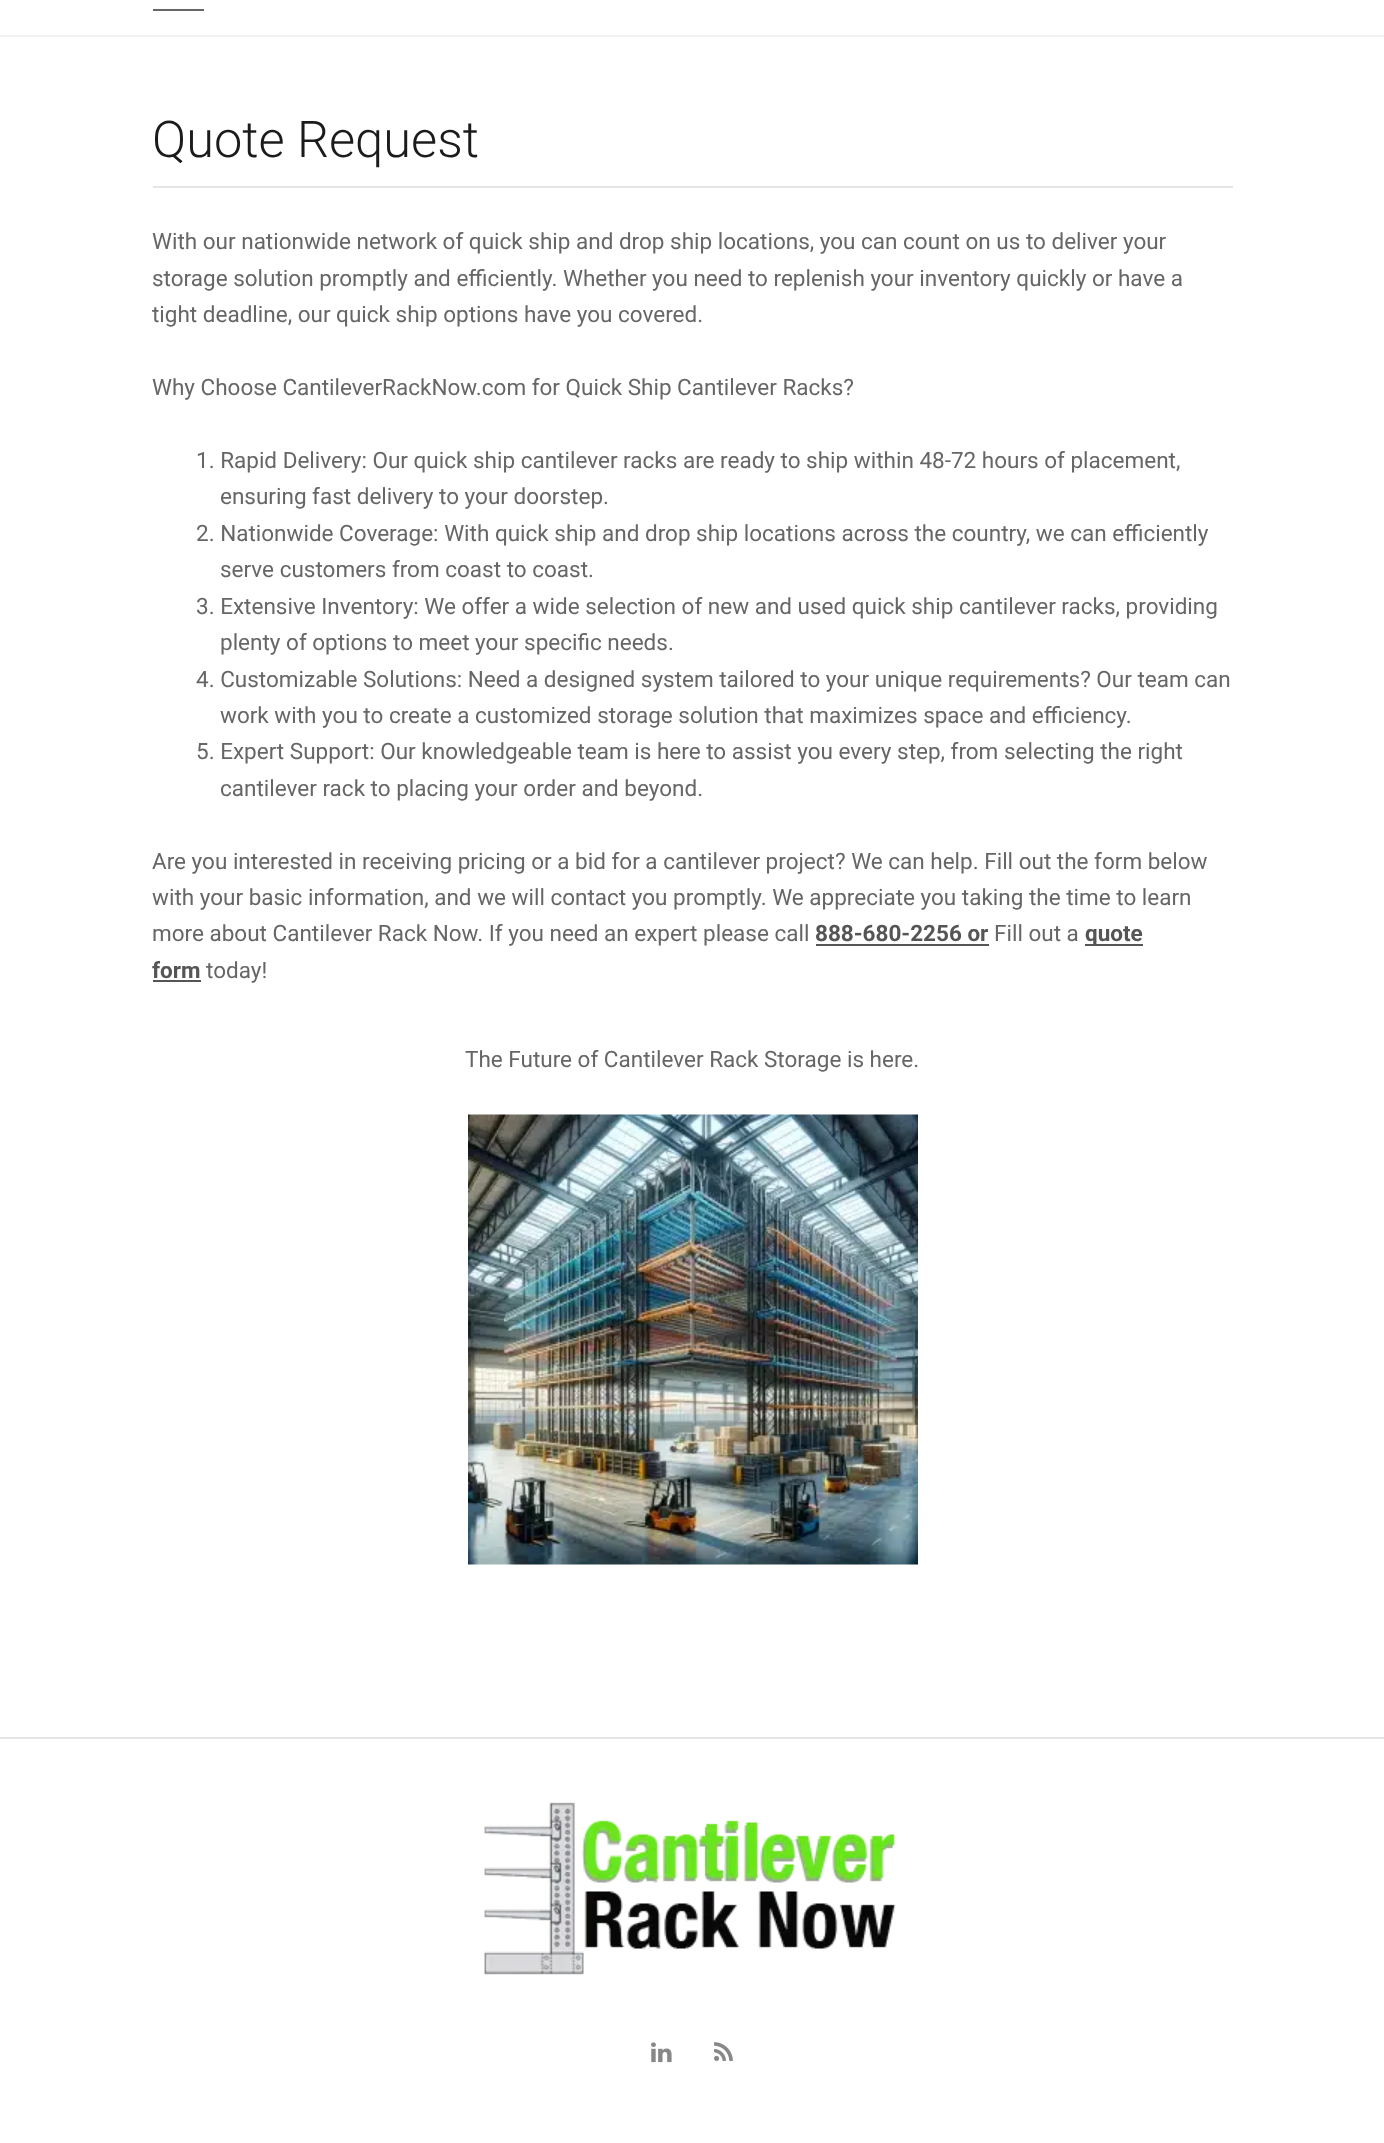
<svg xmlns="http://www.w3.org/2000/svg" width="1384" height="2143">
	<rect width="100%" height="100%" fill="#FFFFFF" />
	<rect x="0" y="35" width="1384" height="2" fill="#F2F2F2" />
	<rect x="153" y="9" width="51" height="2" fill="#666666" />
	<rect x="153" y="186" width="1080" height="2" fill="#E5E5E5" />
	<text x="152" y="157" font-family="Roboto" font-size="50.5" font-weight="300" fill="#1B1B1B">Quote Request</text>
	<g font-family="Roboto" font-size="22.5" fill="#666666">
		<text x="152" y="249">With our nationwide network of quick ship and drop ship locations, you can count on us to deliver your</text>
		<text x="152" y="286">storage solution promptly and efficiently. Whether you need to replenish your inventory quickly or have a</text>
		<text x="152" y="322">tight deadline, our quick ship options have you covered.</text>
		<text x="152" y="395">Why Choose CantileverRackNow.com for Quick Ship Cantilever Racks?</text>
		<text x="196" y="468">1. Rapid Delivery: Our quick ship cantilever racks are ready to ship within 48-72 hours of placement,</text>
		<text x="220" y="504">ensuring fast delivery to your doorstep.</text>
		<text x="196" y="541">2. Nationwide Coverage: With quick ship and drop ship locations across the country, we can efficiently</text>
		<text x="220" y="577">serve customers from coast to coast.</text>
		<text x="196" y="614">3. Extensive Inventory: We offer a wide selection of new and used quick ship cantilever racks, providing</text>
		<text x="220" y="650">plenty of options to meet your specific needs.</text>
		<text x="196" y="687">4. Customizable Solutions: Need a designed system tailored to your unique requirements? Our team can</text>
		<text x="220" y="723">work with you to create a customized storage solution that maximizes space and efficiency.</text>
		<text x="196" y="759">5. Expert Support: Our knowledgeable team is here to assist you every step, from selecting the right</text>
		<text x="220" y="796">cantilever rack to placing your order and beyond.</text>
		<text x="152" y="869">Are you interested in receiving pricing or a bid for a cantilever project? We can help. Fill out the form below</text>
		<text x="152" y="905">with your basic information, and we will contact you promptly. We appreciate you taking the time to learn</text>
		<text x="152" y="941">more about Cantilever Rack Now. If you need an expert please call</text>
	</g>
	<text x="815" y="941" font-family="Roboto" font-size="22.5" font-weight="700" fill="#555555">888-680-2256 or</text>
	<rect x="816" y="944" width="173" height="2" fill="#555555" />
	<text x="994" y="941" font-family="Roboto" font-size="22.5" fill="#666666">Fill out a</text>
	<rect x="1085" y="944" width="58" height="2" fill="#555555" />
	<g font-family="Roboto" font-size="22.5" font-weight="700" fill="#555555">
		<text x="1085" y="941">quote</text>
		<text x="152" y="978">form</text>
	</g>
	<rect x="153" y="980" width="48" height="2" fill="#555555" />
	<g font-family="Roboto" font-size="22.5" fill="#666666">
		<text x="206" y="978">today!</text>
		<text x="465" y="1067">The Future of Cantilever Rack Storage is here.</text>
	</g>
	<image x="468" y="1114" width="450" height="451" href="assets/img1.png" />
	<rect x="0" y="1737" width="1384" height="2" fill="#E5E5E5" />
	<image x="484" y="1802" width="412" height="173" href="assets/img2.png" />
	<image x="651" y="2042" width="21" height="21" href="assets/img3.png" />
	<image x="714" y="2042" width="19" height="19" href="assets/img4.png" />
</svg>
